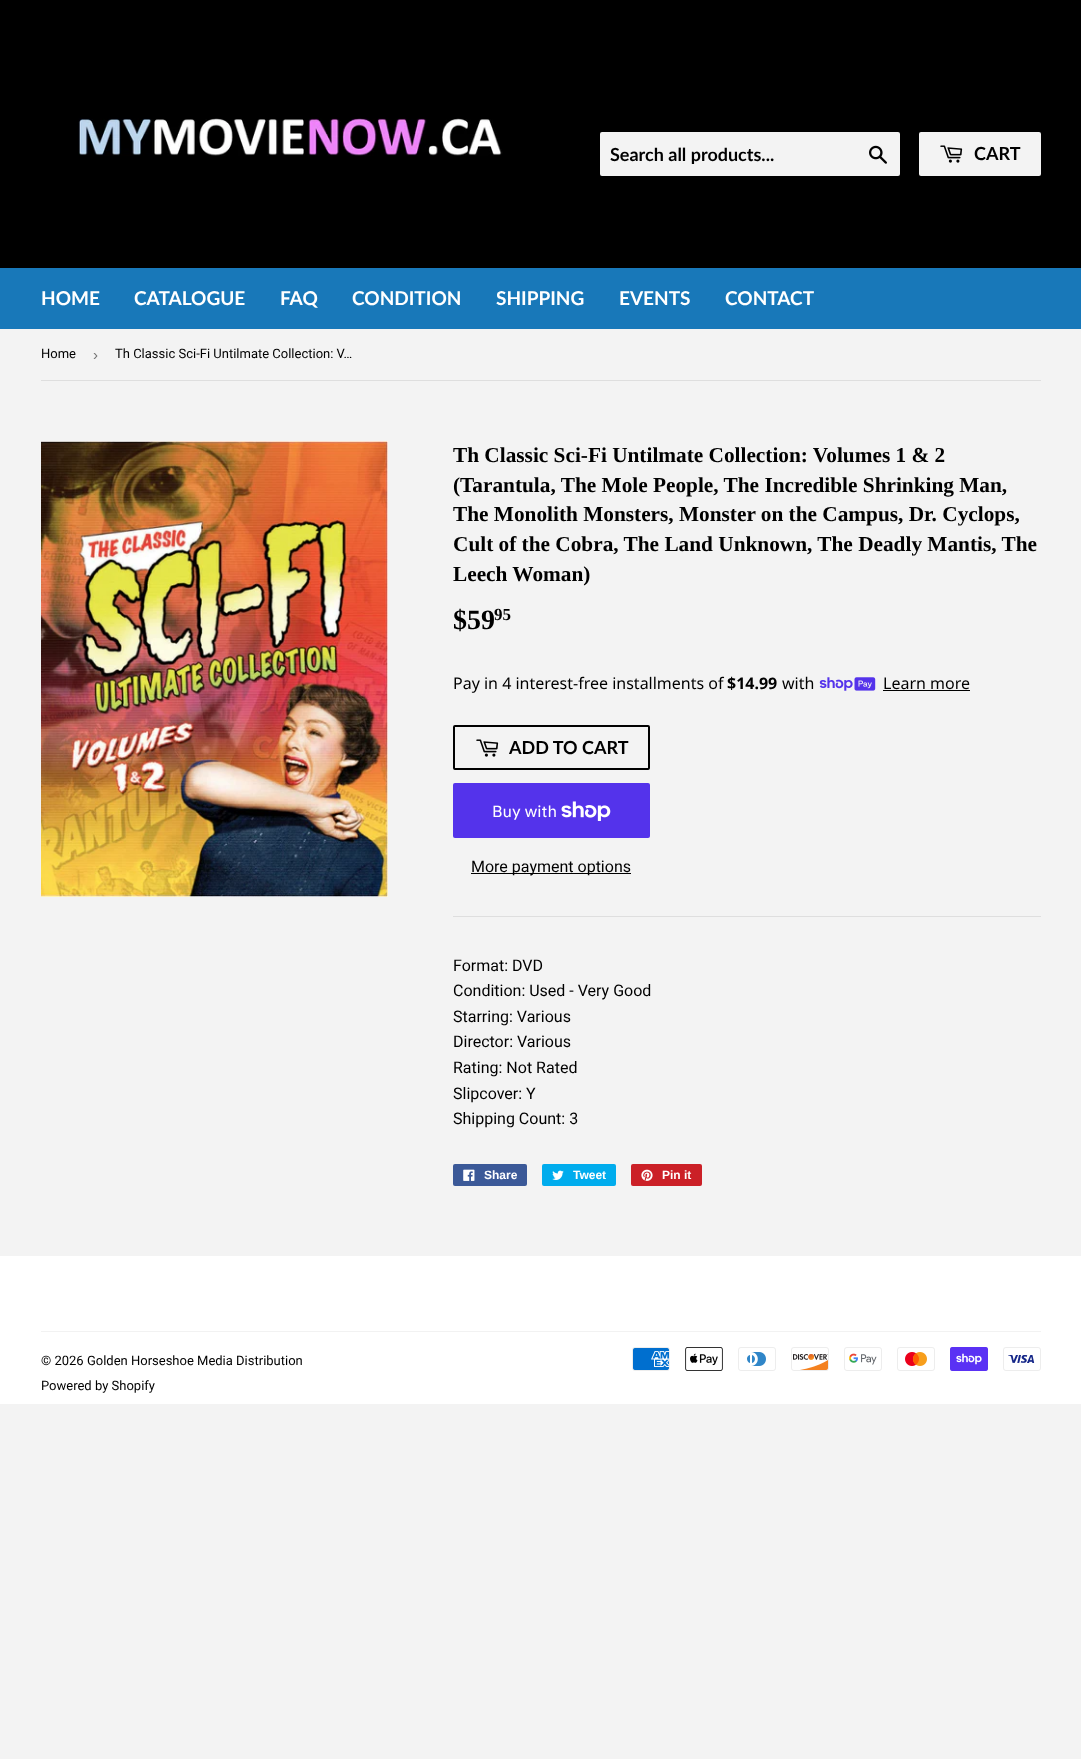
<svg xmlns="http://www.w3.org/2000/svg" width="1081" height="1759">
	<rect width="100%" height="100%" fill="#F3F3F3" />
	<rect x="0" y="0" width="1081" height="268" fill="#000000" />
	<image x="78" y="118" width="425" height="38" href="assets/img1.png" />
	<rect x="600" y="132" width="300" height="44" rx="2" fill="#F3F3F3" />
	<text x="610" y="161" font-family="Lato" font-size="18" font-weight="700" fill="#000000">Search all products...</text>
	<image x="869" y="145" width="18" height="19" href="assets/img2.png" />
	<rect x="919" y="132" width="122" height="44" rx="2" fill="#F3F3F3" />
	<image x="940" y="145" width="23" height="18" href="assets/img3.png" />
	<text x="974" y="160" font-family="Lato" font-size="18" font-weight="700" fill="#000000">CART</text>
	<rect x="0" y="268" width="1081" height="61" fill="#1878B9" />
	<g font-family="Lato" font-size="19" font-weight="700" fill="#FFFFFF">
		<text x="41" y="305">HOME</text>
		<text x="134" y="305">CATALOGUE</text>
		<text x="280" y="305">FAQ</text>
		<text x="352" y="305">CONDITION</text>
		<text x="496" y="305">SHIPPING</text>
		<text x="619" y="305">EVENTS</text>
		<text x="725" y="305">CONTACT</text>
	</g>
	<rect x="41" y="380" width="1000" height="1" fill="#DEDEDE" />
	<text x="41" y="358" font-family="Roboto" font-size="13" fill="#000000">Home</text>
	<text x="93" y="360" font-family="Liberation Sans" font-size="15" fill="#767676">›</text>
	<text x="115" y="358" font-family="Roboto" font-size="13" fill="#000000">Th Classic Sci-Fi Untilmate Collection: V…</text>
	<image x="41" y="441" width="347" height="456" href="assets/img4.png" />
	<g font-family="Liberation Serif" font-size="21.3" font-weight="700" fill="#000000">
		<text x="453" y="462">Th Classic Sci-Fi Untilmate Collection: Volumes 1 &amp; 2</text>
		<text x="453" y="492">(Tarantula, The Mole People, The Incredible Shrinking Man,</text>
		<text x="453" y="521">The Monolith Monsters, Monster on the Campus, Dr. Cyclops,</text>
		<text x="453" y="551">Cult of the Cobra, The Land Unknown, The Deadly Mantis, The</text>
		<text x="453" y="581">Leech Woman)</text>
	</g>
	<text x="453" y="629" font-family="Liberation Serif" font-size="28" font-weight="700" fill="#000000">$59</text>
	<text x="494" y="620" font-family="Liberation Serif" font-size="17" font-weight="700" fill="#000000">95</text>
	<text x="453" y="689" font-family="Noto Sans" font-size="16" fill="#000000">Pay in 4 interest-free installments of</text>
	<text x="727" y="689" font-family="Noto Sans" font-size="16" font-weight="700" fill="#000000">$14.99</text>
	<text x="782" y="689" font-family="Noto Sans" font-size="16" fill="#000000">with</text>
	<image x="819" y="677" width="57" height="14" href="assets/img5.png" />
	<text x="883" y="689" font-family="Noto Sans" font-size="16" fill="#000000">Learn more</text>
	<rect x="883" y="690" width="87" height="1" fill="#000000" />
	<rect x="454" y="726" width="195" height="43" rx="1" fill="none" stroke="#000000" stroke-width="2" />
	<image x="476" y="739" width="23" height="18" href="assets/img3.png" />
	<text x="509" y="754" font-family="Lato" font-size="18" font-weight="700" fill="#000000">ADD TO CART</text>
	<rect x="453" y="783" width="197" height="55" rx="2" fill="#5433EB" />
	<text x="492" y="817" font-family="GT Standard" font-size="16" fill="#FFFFFF">Buy with</text>
	<image x="561" y="801" width="50" height="20" href="assets/img6.png" />
	<rect x="471" y="873" width="160" height="1" fill="#000000" />
	<text x="471" y="872" font-family="Roboto" font-size="16" fill="#000000">More payment options</text>
	<rect x="453" y="916" width="588" height="1" fill="#DEDEDE" />
	<g font-family="Roboto" font-size="16" fill="#000000">
		<text x="453" y="971">Format: DVD</text>
		<text x="453" y="996">Condition: Used - Very Good</text>
		<text x="453" y="1022">Starring: Various</text>
		<text x="453" y="1047">Director: Various</text>
		<text x="453" y="1073">Rating: Not Rated</text>
		<text x="453" y="1099">Slipcover: Y</text>
		<text x="453" y="1124">Shipping Count: 3</text>
	</g>
	<rect x="453" y="1164" width="74" height="22" rx="2" fill="#3B5998" />
	<image x="463" y="1169" width="12" height="12" href="assets/img7.png" />
	<text x="484" y="1179" font-family="Liberation Sans" font-size="12" font-weight="700" fill="#FFFFFF">Share</text>
	<rect x="542" y="1164" width="74" height="22" rx="2" fill="#00ACED" />
	<image x="552" y="1170" width="12" height="10" href="assets/img8.png" />
	<text x="573" y="1179" font-family="Liberation Sans" font-size="12" font-weight="700" fill="#FFFFFF">Tweet</text>
	<rect x="631" y="1164" width="71" height="22" rx="2" fill="#CB2027" />
	<image x="641" y="1169" width="12" height="12" href="assets/img9.png" />
	<text x="662" y="1179" font-family="Liberation Sans" font-size="12" font-weight="700" fill="#FFFFFF">Pin it</text>
	<rect x="0" y="1256" width="1081" height="148" fill="#FFFFFF" />
	<rect x="41" y="1331" width="1000" height="1" fill="#F2F2F2" />
	<g font-family="Roboto" font-size="13" fill="#000000">
		<text x="41" y="1365">© 2026 Golden Horseshoe Media Distribution</text>
		<text x="41" y="1390">Powered by Shopify</text>
	</g>
	<image x="632" y="1347" width="38" height="24" href="assets/img10.png" />
	<image x="685" y="1347" width="38" height="24" href="assets/img11.png" />
	<image x="738" y="1347" width="38" height="24" href="assets/img12.png" />
	<image x="791" y="1347" width="38" height="24" href="assets/img13.png" />
	<image x="844" y="1347" width="38" height="24" href="assets/img14.png" />
	<image x="897" y="1347" width="38" height="24" href="assets/img15.png" />
	<image x="950" y="1347" width="38" height="24" href="assets/img16.png" />
	<image x="1003" y="1347" width="38" height="24" href="assets/img17.png" />
</svg>
